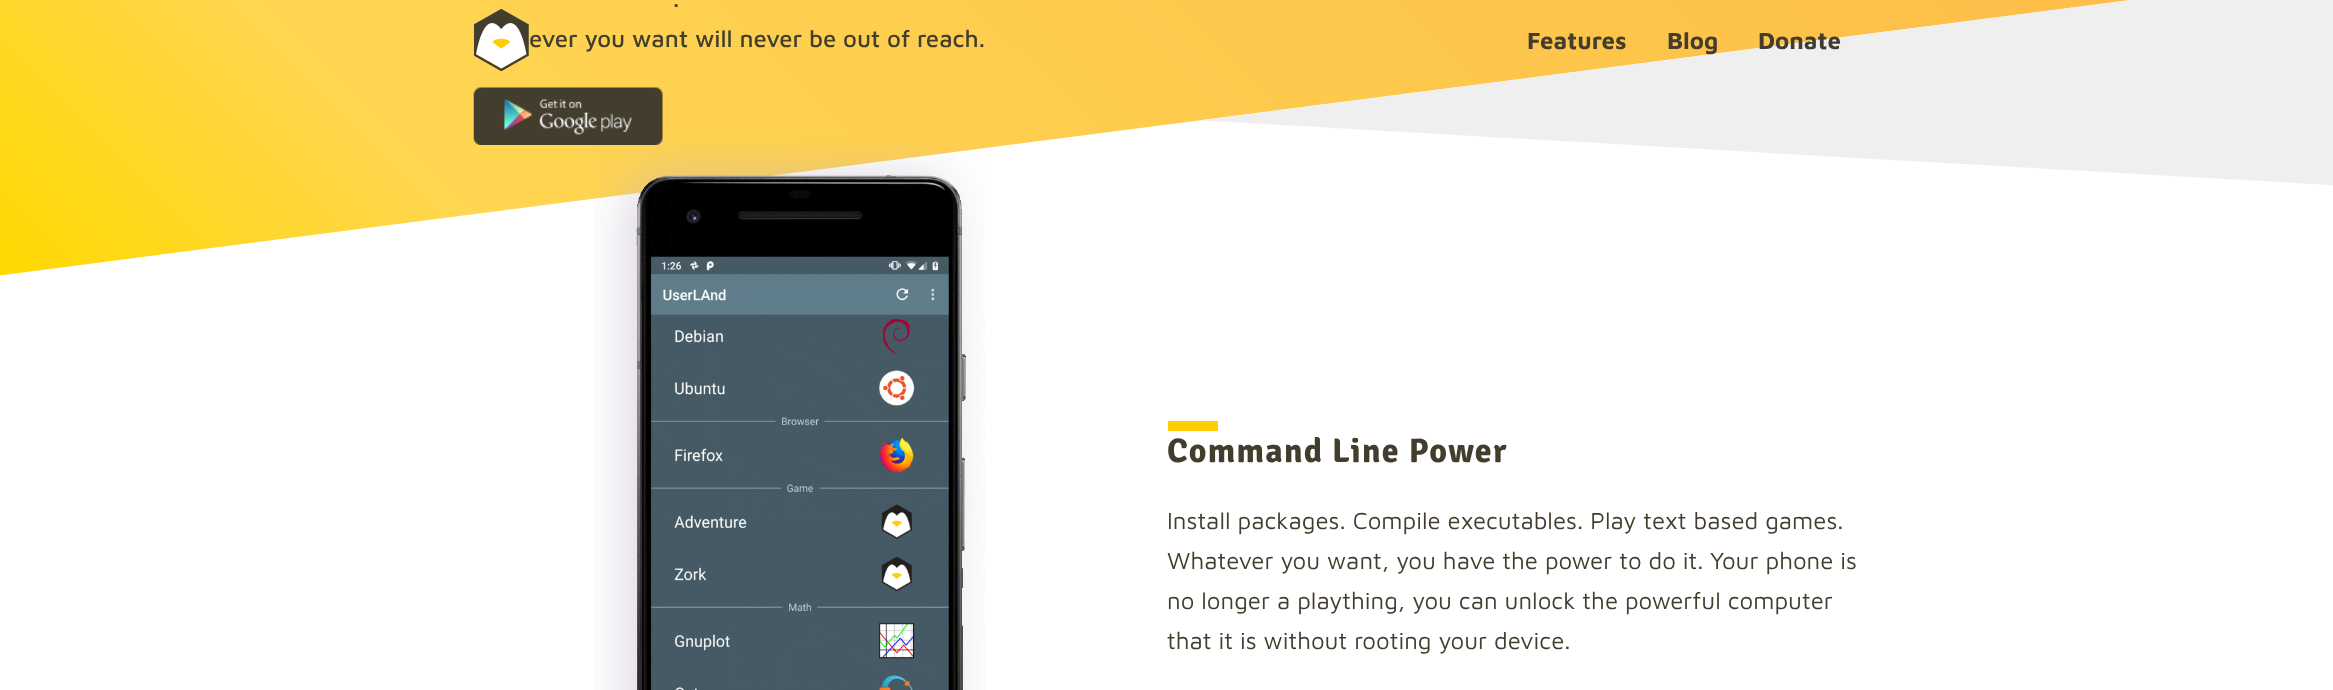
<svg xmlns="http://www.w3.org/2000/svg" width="2333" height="690">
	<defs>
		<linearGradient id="g1" gradientUnits="userSpaceOnUse" x1="1914" y1="-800" x2="420" y2="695"><stop offset="0" stop-color="#FFB751" /><stop offset="0.29" stop-color="#FDC149" /><stop offset="0.82" stop-color="#FFD652" /><stop offset="1" stop-color="#FFD900" /></linearGradient>
	</defs>
	<rect width="100%" height="100%" fill="#FFFFFF" />
	<rect x="0" y="0" width="2130" height="275" fill="url(#g1)" />
	<image x="3" y="0" width="2330" height="275" href="assets/img1.png" />
	<g font-family="Maven Pro" font-size="24" font-weight="500" fill="#423D2D">
		<text x="673" y="7">.</text>
		<text x="529" y="47">ever you want will never be out of reach.</text>
	</g>
	<image x="594" y="139" width="391" height="551" href="assets/img3.png" />
	<image x="473" y="87" width="190" height="58" href="assets/img2.png" />
	<rect x="1168" y="421" width="50" height="10" fill="#FFCC05" />
	<text x="1167" y="462" font-family="Signika" font-size="34" font-weight="300" letter-spacing="1.25" fill="#423D2D">Command Line Power</text>
	<g font-family="Maven Pro" font-size="24" fill="#423D2D">
		<text x="1167" y="529">Install packages. Compile executables. Play text based games.</text>
		<text x="1167" y="569">Whatever you want, you have the power to do it.</text>
		<text x="1710" y="569">Your phone is</text>
		<text x="1167" y="609">no longer a plaything, you can unlock the powerful computer</text>
		<text x="1167" y="649">that it is without rooting your device.</text>
	</g>
	<image x="474" y="9" width="55" height="62" href="assets/img4.png" />
	<g font-family="Maven Pro" font-size="24" font-weight="700" fill="#423D2D">
		<text x="1527" y="49">Features</text>
		<text x="1667" y="49">Blog</text>
		<text x="1758" y="49">Donate</text>
	</g>
</svg>
